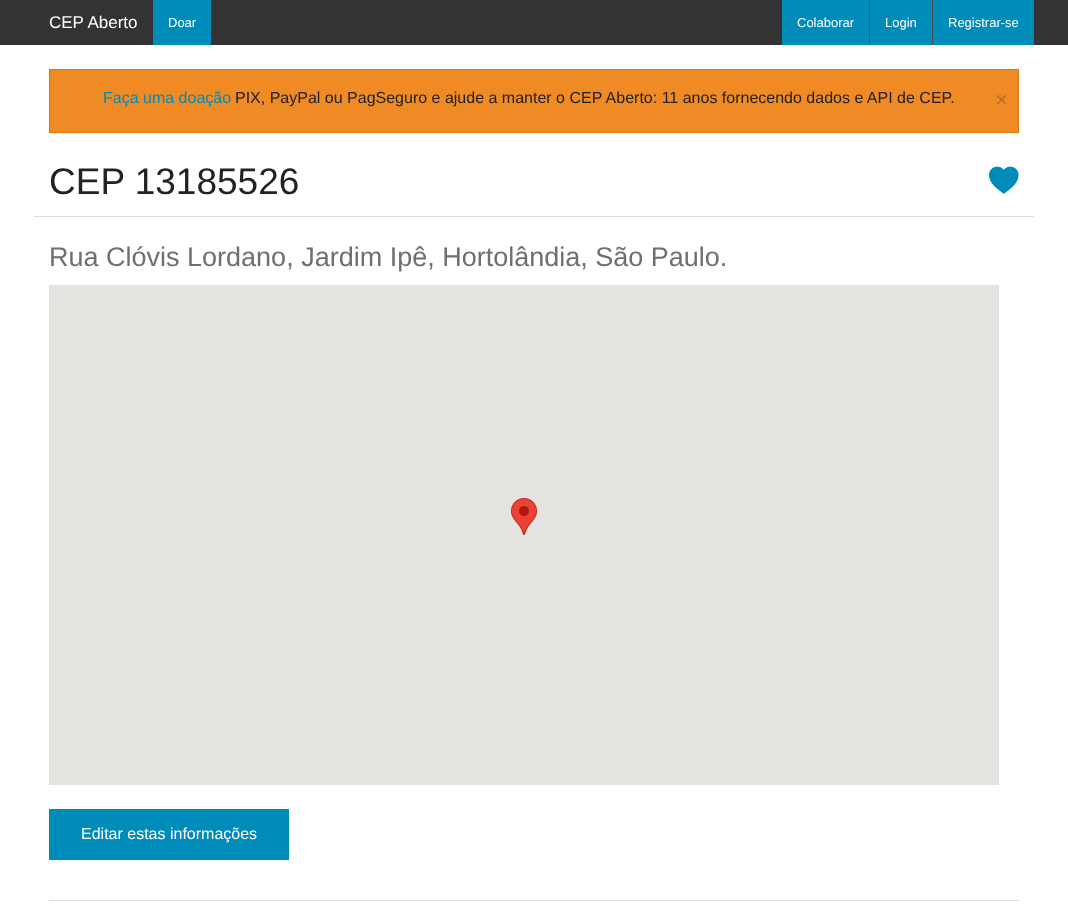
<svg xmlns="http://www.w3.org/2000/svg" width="1068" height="911">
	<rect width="100%" height="100%" fill="#FFFFFF" />
	<rect x="0" y="0" width="1068" height="45" fill="#333333" />
	<text x="49" y="28" font-family="Liberation Sans" font-size="17" fill="#FFFFFF">CEP Aberto</text>
	<rect x="153" y="0" width="58" height="45" fill="#008CBA" />
	<text x="168" y="27" font-family="Liberation Sans" font-size="13" fill="#FFFFFF">Doar</text>
	<rect x="782" y="0" width="87" height="45" fill="#008CBA" />
	<text x="797" y="27" font-family="Liberation Sans" font-size="13" fill="#FFFFFF">Colaborar</text>
	<rect x="869" y="0" width="1" height="45" fill="#4E4E4E" />
	<rect x="870" y="0" width="62" height="45" fill="#008CBA" />
	<text x="885" y="27" font-family="Liberation Sans" font-size="13" fill="#FFFFFF">Login</text>
	<rect x="932" y="0" width="1" height="45" fill="#4E4E4E" />
	<rect x="933" y="0" width="101" height="45" fill="#008CBA" />
	<text x="948" y="27" font-family="Liberation Sans" font-size="13" fill="#FFFFFF">Registrar-se</text>
	<rect x="49.5" y="69.5" width="969" height="63" fill="#F08A24" stroke="#DE770F" />
	<text x="103" y="103" font-family="Liberation Sans" font-size="16" fill="#008CBA">Faça uma doação</text>
	<text x="235" y="103" font-family="Liberation Sans" font-size="16" fill="#222222">PIX, PayPal ou PagSeguro e ajude a manter o CEP Aberto: 11 anos fornecendo dados e API de CEP.</text>
	<text x="995" y="107" font-family="Liberation Sans" font-size="22" fill="#B77029">×</text>
	<text x="49" y="194" font-family="Liberation Sans" font-size="37" fill="#222222">CEP 13185526</text>
	<image x="989" y="166" width="30" height="28" href="assets/img1.png" />
	<rect x="34" y="216" width="1000" height="1" fill="#DDDDDD" />
	<text x="49" y="266" font-family="Liberation Sans" font-size="27" fill="#6F6F6F">Rua Clóvis Lordano, Jardim Ipê, Hortolândia, São Paulo.</text>
	<rect x="49" y="285" width="950" height="500" fill="#E5E3DF" />
	<image x="511" y="498" width="26" height="37" href="assets/img2.png" />
	<rect x="49" y="809" width="240" height="51" fill="#008CBA" />
	<text x="81" y="839" font-family="Liberation Sans" font-size="16" fill="#FFFFFF">Editar estas informações</text>
	<rect x="49" y="900" width="970" height="1" fill="#DDDDDD" />
</svg>
